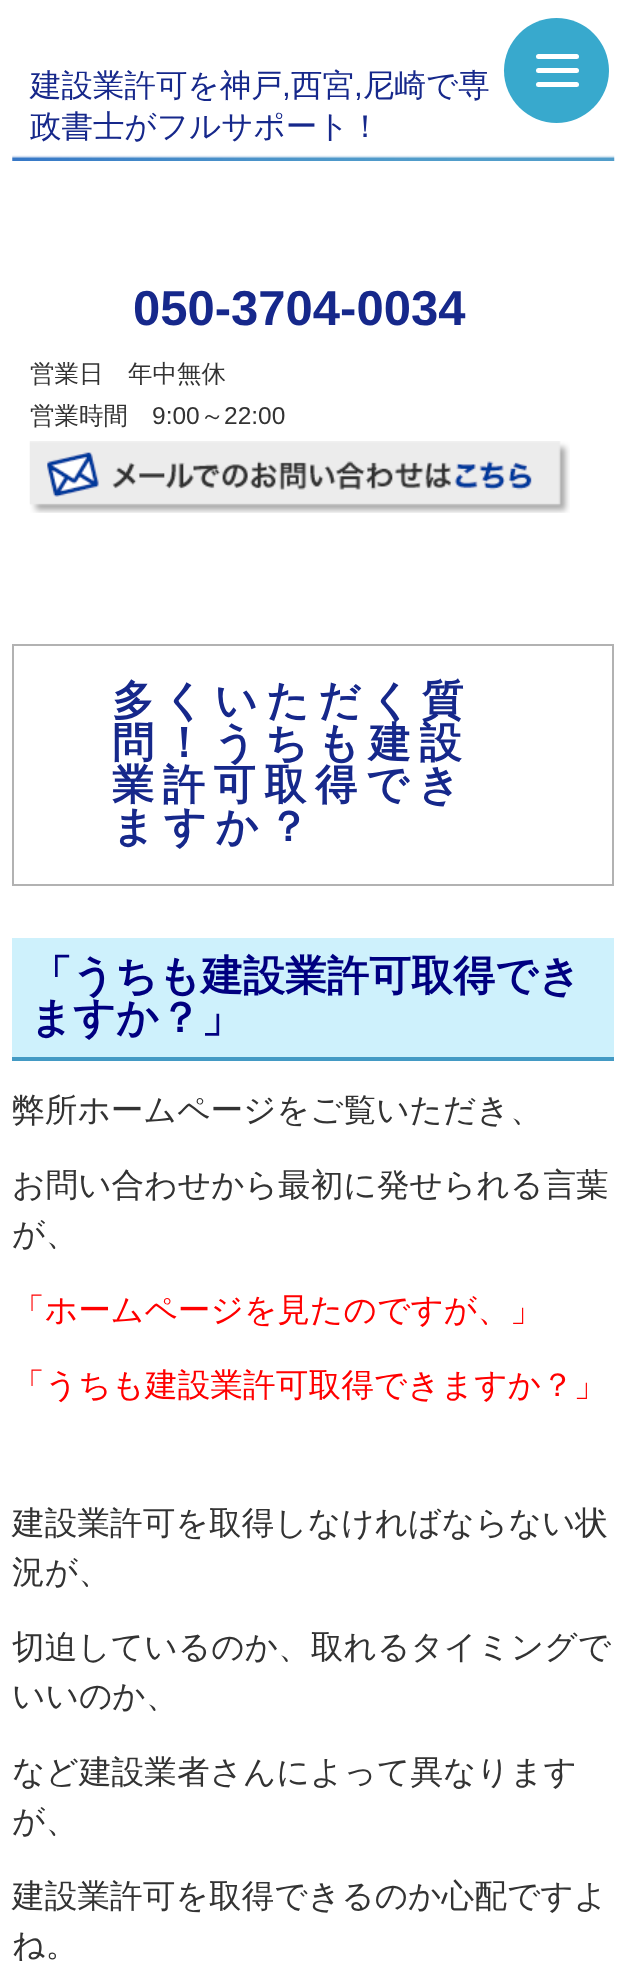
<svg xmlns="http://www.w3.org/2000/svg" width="626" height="1983">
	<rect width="100%" height="100%" fill="#FFFFFF" />
	<text x="30" y="96" font-family="WenQuanYi Zen Hei" font-size="31.5" font-weight="500" fill="#16288B">建設業許可を神戸</text>
	<text x="282" y="96" font-family="Liberation Sans" font-size="31.5" fill="#16288B">,</text>
	<text x="291" y="96" font-family="WenQuanYi Zen Hei" font-size="31.5" font-weight="500" fill="#16288B">西宮</text>
	<text x="354" y="96" font-family="Liberation Sans" font-size="31.5" fill="#16288B">,</text>
	<g font-family="WenQuanYi Zen Hei" font-size="31.5" font-weight="500" fill="#16288B">
		<text x="363" y="96">尼崎で専</text>
		<text x="30" y="137">政書士がフルサポート！</text>
	</g>
	<image x="12" y="155" width="603" height="6" href="assets/img1.png" />
	<text x="133" y="325" font-family="Liberation Sans" font-size="49" font-weight="700" fill="#16288B">050-3704-0034</text>
	<g font-family="WenQuanYi Zen Hei" font-size="24.5" font-weight="500" fill="#333333">
		<text x="30" y="382">営業日　年中無休</text>
		<text x="30" y="424">営業時間</text>
	</g>
	<text x="152" y="424" font-family="Liberation Sans" font-size="24.5" fill="#333333">9:00</text>
	<text x="200" y="424" font-family="WenQuanYi Zen Hei" font-size="24.5" font-weight="500" fill="#333333">～</text>
	<text x="224" y="424" font-family="Liberation Sans" font-size="24.5" fill="#333333">22:00</text>
	<image x="29" y="441" width="541" height="72" href="assets/img2.png" />
	<circle cx="556.5" cy="70.5" r="52.5" fill="#38A9CD" />
	<rect x="536" y="68" width="43" height="5" rx="2.5" fill="#FFFFFF" />
	<rect x="536" y="54" width="43" height="5" rx="2.5" fill="#FFFFFF" />
	<rect x="536" y="82" width="43" height="5" rx="2.5" fill="#FFFFFF" />
	<rect x="13" y="645" width="600" height="240" fill="none" stroke="#B2B2B2" stroke-width="2" />
	<g font-family="WenQuanYi Zen Hei" font-size="42" font-weight="700" letter-spacing="8.75" fill="#16288B">
		<text x="112" y="715">多くいただく質</text>
		<text x="112" y="757">問！うちも建設</text>
		<text x="112" y="799">業許可取得でき</text>
		<text x="112" y="841">ますか？</text>
	</g>
	<rect x="12" y="938" width="602" height="119" fill="#CEF1FC" />
	<rect x="12" y="1057" width="602" height="4" fill="#439AC4" />
	<g font-family="WenQuanYi Zen Hei" font-size="42" font-weight="700" fill="#000080">
		<text x="30" y="990">「うちも建設業許可取得でき</text>
		<text x="30" y="1032">ますか？」</text>
	</g>
	<g font-family="WenQuanYi Zen Hei" font-size="32.7" font-weight="500" fill="#333333">
		<text x="12" y="1121">弊所ホームページをご覧いただき、</text>
		<text x="12" y="1196">お問い合わせから最初に発せられる言葉</text>
		<text x="12" y="1245">が、</text>
	</g>
	<g font-family="WenQuanYi Zen Hei" font-size="32.7" font-weight="500" fill="#FF0000">
		<text x="12" y="1321">「ホームページを見たのですが、」</text>
		<text x="12" y="1396">「うちも建設業許可取得できますか？」</text>
	</g>
	<g font-family="WenQuanYi Zen Hei" font-size="32.7" font-weight="500" fill="#333333">
		<text x="12" y="1534">建設業許可を取得しなければならない状</text>
		<text x="12" y="1583">況が、</text>
		<text x="12" y="1658">切迫しているのか、取れるタイミングで</text>
		<text x="12" y="1707">いいのか、</text>
		<text x="12" y="1783">など建設業者さんによって異なります</text>
		<text x="12" y="1832">が、</text>
		<text x="12" y="1907">建設業許可を取得できるのか心配ですよ</text>
		<text x="12" y="1956">ね。</text>
	</g>
</svg>
